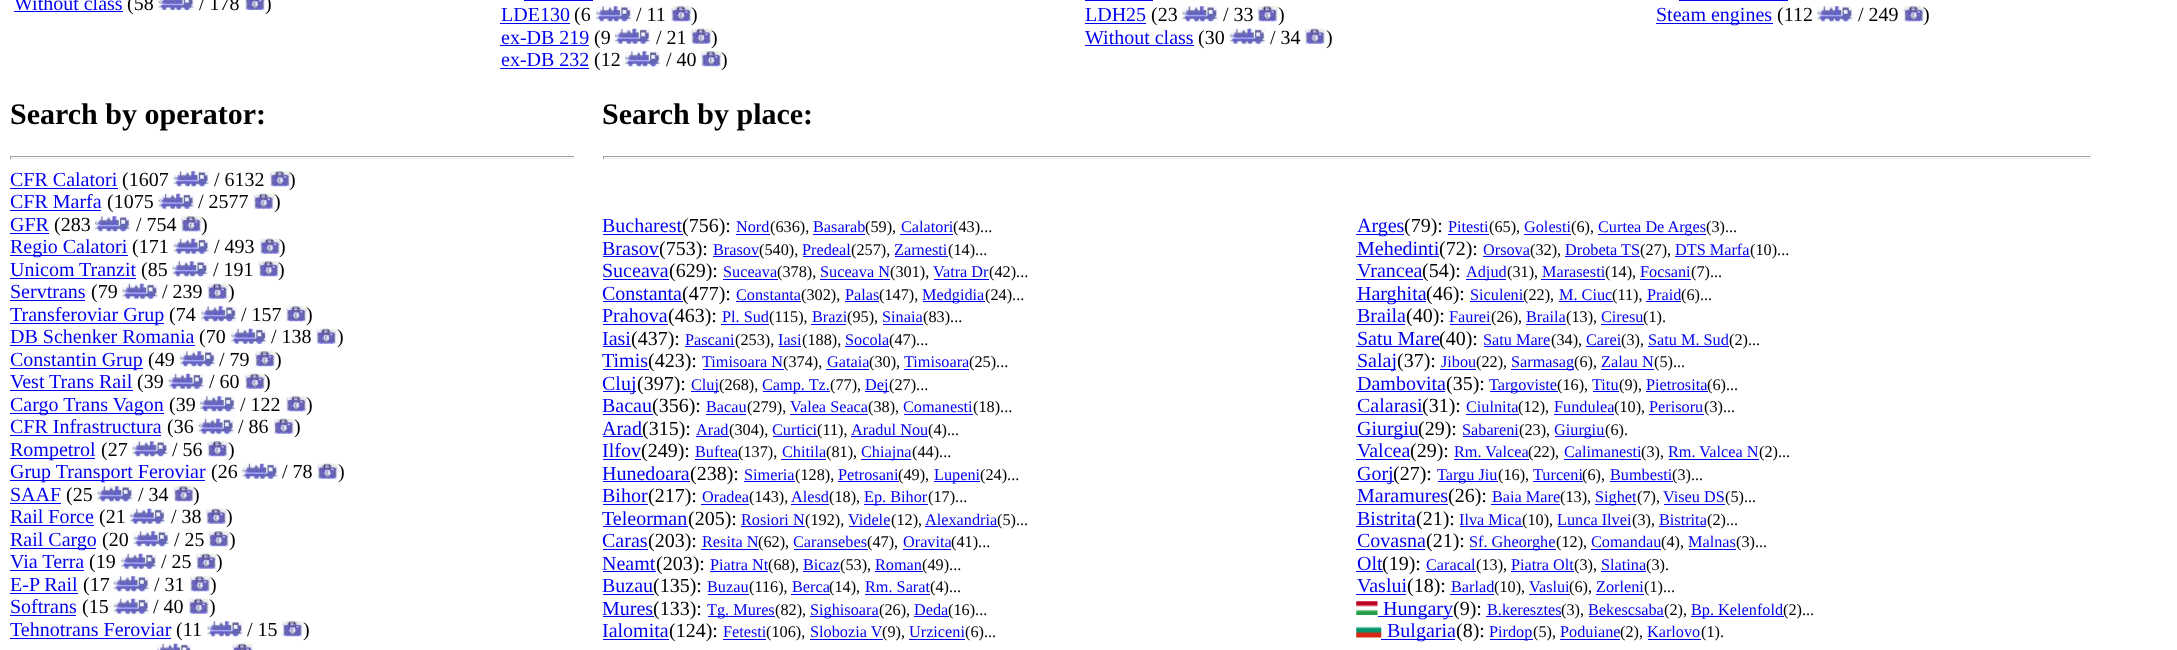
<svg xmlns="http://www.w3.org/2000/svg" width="2177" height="650">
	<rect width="100%" height="100%" fill="#FFFFFF" />
	<text x="14" y="10" font-family="Liberation Serif" font-size="20" fill="#0000EE">Without class</text>
	<rect x="14" y="11" width="109" height="1" fill="#0000EE" />
	<text x="127" y="10" font-family="Liberation Serif" font-size="20" fill="#000000">(58</text>
	<image x="158" y="0" width="36" height="10" href="assets/img1.png" />
	<text x="199" y="10" font-family="Liberation Serif" font-size="20" fill="#000000">/ 178</text>
	<image x="245" y="0" width="20" height="10" href="assets/img2.png" />
	<text x="265" y="10" font-family="Liberation Serif" font-size="20" fill="#000000">)</text>
	<rect x="524" y="0" width="69" height="1" fill="#0000EE" />
	<text x="501" y="21" font-family="Liberation Serif" font-size="20" fill="#0000EE">LDE130</text>
	<rect x="500" y="23" width="70" height="1" fill="#0000EE" />
	<text x="574" y="21" font-family="Liberation Serif" font-size="20" fill="#000000">(6</text>
	<image x="596" y="6" width="36" height="16" href="assets/img3.png" />
	<text x="636" y="21" font-family="Liberation Serif" font-size="20" fill="#000000">/ 11</text>
	<image x="671" y="6" width="21" height="16" href="assets/img4.png" />
	<text x="691" y="21" font-family="Liberation Serif" font-size="20" fill="#000000">)</text>
	<text x="501" y="44" font-family="Liberation Serif" font-size="20" fill="#0000EE">ex-DB 219</text>
	<rect x="500" y="45" width="89" height="1" fill="#0000EE" />
	<text x="594" y="44" font-family="Liberation Serif" font-size="20" fill="#000000">(9</text>
	<image x="615" y="28" width="35" height="16" href="assets/img5.png" />
	<text x="656" y="44" font-family="Liberation Serif" font-size="20" fill="#000000">/ 21</text>
	<image x="691" y="28" width="21" height="16" href="assets/img6.png" />
	<text x="711" y="44" font-family="Liberation Serif" font-size="20" fill="#000000">)</text>
	<text x="501" y="66" font-family="Liberation Serif" font-size="20" fill="#0000EE">ex-DB 232</text>
	<rect x="500" y="68" width="89" height="1" fill="#0000EE" />
	<text x="594" y="66" font-family="Liberation Serif" font-size="20" fill="#000000">(12</text>
	<image x="625" y="51" width="35" height="16" href="assets/img7.png" />
	<text x="666" y="66" font-family="Liberation Serif" font-size="20" fill="#000000">/ 40</text>
	<image x="701" y="51" width="21" height="16" href="assets/img4.png" />
	<text x="721" y="66" font-family="Liberation Serif" font-size="20" fill="#000000">)</text>
	<rect x="1085" y="0" width="68" height="1" fill="#0000EE" />
	<text x="1085" y="21" font-family="Liberation Serif" font-size="20" fill="#0000EE">LDH25</text>
	<rect x="1085" y="23" width="61" height="1" fill="#0000EE" />
	<text x="1151" y="21" font-family="Liberation Serif" font-size="20" fill="#000000">(23</text>
	<image x="1182" y="6" width="36" height="16" href="assets/img8.png" />
	<text x="1223" y="21" font-family="Liberation Serif" font-size="20" fill="#000000">/ 33</text>
	<image x="1257" y="6" width="21" height="16" href="assets/img9.png" />
	<text x="1278" y="21" font-family="Liberation Serif" font-size="20" fill="#000000">)</text>
	<text x="1085" y="44" font-family="Liberation Serif" font-size="20" fill="#0000EE">Without class</text>
	<rect x="1085" y="45" width="109" height="1" fill="#0000EE" />
	<text x="1198" y="44" font-family="Liberation Serif" font-size="20" fill="#000000">(30</text>
	<image x="1230" y="28" width="35" height="16" href="assets/img5.png" />
	<text x="1270" y="44" font-family="Liberation Serif" font-size="20" fill="#000000">/ 34</text>
	<image x="1305" y="28" width="20" height="16" href="assets/img10.png" />
	<text x="1326" y="44" font-family="Liberation Serif" font-size="20" fill="#000000">)</text>
	<rect x="1679" y="0" width="109" height="1" fill="#0000EE" />
	<rect x="1656" y="23" width="117" height="1" fill="#0000EE" />
	<text x="1656" y="21" font-family="Liberation Serif" font-size="20" fill="#0000EE">Steam engines</text>
	<text x="1777" y="21" font-family="Liberation Serif" font-size="20" fill="#000000">(112</text>
	<image x="1817" y="6" width="36" height="16" href="assets/img8.png" />
	<text x="1858" y="21" font-family="Liberation Serif" font-size="20" fill="#000000">/ 249</text>
	<image x="1903" y="6" width="21" height="16" href="assets/img11.png" />
	<text x="1923" y="21" font-family="Liberation Serif" font-size="20" fill="#000000">)</text>
	<text x="10" y="124" font-family="Liberation Serif" font-size="30" font-weight="700" fill="#000000">Search by operator:</text>
	<rect x="10" y="156" width="565" height="1" fill="#9F9F9F" />
	<rect x="574" y="156" width="1" height="3" fill="#EEEEEE" />
	<rect x="10" y="158" width="565" height="1" fill="#EEEEEE" />
	<rect x="10" y="156" width="1" height="3" fill="#9F9F9F" />
	<text x="10" y="186" font-family="Liberation Serif" font-size="20" fill="#0000EE">CFR Calatori</text>
	<rect x="10" y="188" width="108" height="1" fill="#0000EE" />
	<text x="122" y="186" font-family="Liberation Serif" font-size="20" fill="#000000">(1607</text>
	<image x="173" y="171" width="36" height="16" href="assets/img12.png" />
	<text x="214" y="186" font-family="Liberation Serif" font-size="20" fill="#000000">/ 6132</text>
	<image x="270" y="171" width="20" height="16" href="assets/img13.png" />
	<text x="289" y="186" font-family="Liberation Serif" font-size="20" fill="#000000">)</text>
	<text x="10" y="208" font-family="Liberation Serif" font-size="20" fill="#0000EE">CFR Marfa</text>
	<rect x="10" y="210" width="91" height="1" fill="#0000EE" />
	<text x="107" y="208" font-family="Liberation Serif" font-size="20" fill="#000000">(1075</text>
	<image x="158" y="193" width="36" height="16" href="assets/img14.png" />
	<text x="198" y="208" font-family="Liberation Serif" font-size="20" fill="#000000">/ 2577</text>
	<image x="253" y="193" width="21" height="16" href="assets/img15.png" />
	<text x="274" y="208" font-family="Liberation Serif" font-size="20" fill="#000000">)</text>
	<text x="10" y="231" font-family="Liberation Serif" font-size="20" fill="#0000EE">GFR</text>
	<rect x="10" y="233" width="39" height="1" fill="#0000EE" />
	<text x="54" y="231" font-family="Liberation Serif" font-size="20" fill="#000000">(283</text>
	<image x="95" y="216" width="35" height="16" href="assets/img7.png" />
	<text x="136" y="231" font-family="Liberation Serif" font-size="20" fill="#000000">/ 754</text>
	<image x="181" y="216" width="21" height="16" href="assets/img4.png" />
	<text x="201" y="231" font-family="Liberation Serif" font-size="20" fill="#000000">)</text>
	<rect x="10" y="255" width="118" height="1" fill="#0000EE" />
	<text x="10" y="253" font-family="Liberation Serif" font-size="20" fill="#0000EE">Regio Calatori</text>
	<text x="132" y="253" font-family="Liberation Serif" font-size="20" fill="#000000">(171</text>
	<image x="173" y="238" width="36" height="16" href="assets/img16.png" />
	<text x="214" y="253" font-family="Liberation Serif" font-size="20" fill="#000000">/ 493</text>
	<image x="260" y="238" width="20" height="16" href="assets/img17.png" />
	<text x="279" y="253" font-family="Liberation Serif" font-size="20" fill="#000000">)</text>
	<text x="10" y="276" font-family="Liberation Serif" font-size="20" fill="#0000EE">Unicom Tranzit</text>
	<rect x="10" y="278" width="126" height="1" fill="#0000EE" />
	<text x="141" y="276" font-family="Liberation Serif" font-size="20" fill="#000000">(85</text>
	<image x="172" y="261" width="36" height="16" href="assets/img8.png" />
	<text x="213" y="276" font-family="Liberation Serif" font-size="20" fill="#000000">/ 191</text>
	<image x="258" y="261" width="21" height="16" href="assets/img11.png" />
	<text x="278" y="276" font-family="Liberation Serif" font-size="20" fill="#000000">)</text>
	<text x="10" y="298" font-family="Liberation Serif" font-size="20" fill="#0000EE">Servtrans</text>
	<rect x="10" y="300" width="75" height="1" fill="#0000EE" />
	<text x="91" y="298" font-family="Liberation Serif" font-size="20" fill="#000000">(79</text>
	<image x="122" y="283" width="36" height="16" href="assets/img18.png" />
	<text x="162" y="298" font-family="Liberation Serif" font-size="20" fill="#000000">/ 239</text>
	<image x="207" y="283" width="21" height="16" href="assets/img19.png" />
	<text x="228" y="298" font-family="Liberation Serif" font-size="20" fill="#000000">)</text>
	<rect x="10" y="323" width="154" height="1" fill="#0000EE" />
	<text x="10" y="321" font-family="Liberation Serif" font-size="20" fill="#0000EE">Transferoviar Grup</text>
	<text x="169" y="321" font-family="Liberation Serif" font-size="20" fill="#000000">(74</text>
	<image x="201" y="306" width="36" height="16" href="assets/img3.png" />
	<text x="241" y="321" font-family="Liberation Serif" font-size="20" fill="#000000">/ 157</text>
	<image x="286" y="306" width="21" height="16" href="assets/img4.png" />
	<text x="306" y="321" font-family="Liberation Serif" font-size="20" fill="#000000">)</text>
	<text x="10" y="343" font-family="Liberation Serif" font-size="20" fill="#0000EE">DB Schenker Romania</text>
	<rect x="10" y="345" width="185" height="1" fill="#0000EE" />
	<text x="199" y="343" font-family="Liberation Serif" font-size="20" fill="#000000">(70</text>
	<image x="231" y="328" width="36" height="16" href="assets/img20.png" />
	<text x="271" y="343" font-family="Liberation Serif" font-size="20" fill="#000000">/ 138</text>
	<image x="316" y="328" width="21" height="16" href="assets/img21.png" />
	<text x="337" y="343" font-family="Liberation Serif" font-size="20" fill="#000000">)</text>
	<rect x="10" y="368" width="133" height="1" fill="#0000EE" />
	<text x="10" y="366" font-family="Liberation Serif" font-size="20" fill="#0000EE">Constantin Grup</text>
	<text x="148" y="366" font-family="Liberation Serif" font-size="20" fill="#000000">(49</text>
	<image x="180" y="351" width="35" height="16" href="assets/img7.png" />
	<text x="219" y="366" font-family="Liberation Serif" font-size="20" fill="#000000">/ 79</text>
	<image x="255" y="351" width="20" height="16" href="assets/img22.png" />
	<text x="275" y="366" font-family="Liberation Serif" font-size="20" fill="#000000">)</text>
	<text x="10" y="388" font-family="Liberation Serif" font-size="20" fill="#0000EE">Vest Trans Rail</text>
	<rect x="10" y="390" width="123" height="1" fill="#0000EE" />
	<text x="137" y="388" font-family="Liberation Serif" font-size="20" fill="#000000">(39</text>
	<image x="168" y="373" width="36" height="16" href="assets/img16.png" />
	<text x="209" y="388" font-family="Liberation Serif" font-size="20" fill="#000000">/ 60</text>
	<image x="245" y="373" width="20" height="16" href="assets/img17.png" />
	<text x="264" y="388" font-family="Liberation Serif" font-size="20" fill="#000000">)</text>
	<rect x="10" y="413" width="154" height="1" fill="#0000EE" />
	<text x="10" y="411" font-family="Liberation Serif" font-size="20" fill="#0000EE">Cargo Trans Vagon</text>
	<text x="169" y="411" font-family="Liberation Serif" font-size="20" fill="#000000">(39</text>
	<image x="200" y="396" width="35" height="16" href="assets/img7.png" />
	<text x="240" y="411" font-family="Liberation Serif" font-size="20" fill="#000000">/ 122</text>
	<image x="286" y="396" width="21" height="16" href="assets/img4.png" />
	<text x="306" y="411" font-family="Liberation Serif" font-size="20" fill="#000000">)</text>
	<text x="10" y="433" font-family="Liberation Serif" font-size="20" fill="#0000EE">CFR Infrastructura</text>
	<rect x="10" y="435" width="151" height="1" fill="#0000EE" />
	<text x="167" y="433" font-family="Liberation Serif" font-size="20" fill="#000000">(36</text>
	<image x="198" y="418" width="36" height="16" href="assets/img23.png" />
	<text x="238" y="433" font-family="Liberation Serif" font-size="20" fill="#000000">/ 86</text>
	<image x="273" y="418" width="21" height="16" href="assets/img24.png" />
	<text x="294" y="433" font-family="Liberation Serif" font-size="20" fill="#000000">)</text>
	<rect x="10" y="458" width="85" height="1" fill="#0000EE" />
	<text x="10" y="456" font-family="Liberation Serif" font-size="20" fill="#0000EE">Rompetrol</text>
	<text x="101" y="456" font-family="Liberation Serif" font-size="20" fill="#000000">(27</text>
	<image x="132" y="441" width="36" height="16" href="assets/img8.png" />
	<text x="172" y="456" font-family="Liberation Serif" font-size="20" fill="#000000">/ 56</text>
	<image x="207" y="441" width="21" height="16" href="assets/img25.png" />
	<text x="228" y="456" font-family="Liberation Serif" font-size="20" fill="#000000">)</text>
	<rect x="10" y="480" width="195" height="1" fill="#0000EE" />
	<text x="10" y="478" font-family="Liberation Serif" font-size="20" fill="#0000EE">Grup Transport Feroviar</text>
	<text x="211" y="478" font-family="Liberation Serif" font-size="20" fill="#000000">(26</text>
	<image x="242" y="463" width="36" height="16" href="assets/img26.png" />
	<text x="282" y="478" font-family="Liberation Serif" font-size="20" fill="#000000">/ 78</text>
	<image x="317" y="463" width="21" height="16" href="assets/img19.png" />
	<text x="338" y="478" font-family="Liberation Serif" font-size="20" fill="#000000">)</text>
	<text x="10" y="501" font-family="Liberation Serif" font-size="20" fill="#0000EE">SAAF</text>
	<rect x="10" y="503" width="51" height="1" fill="#0000EE" />
	<text x="66" y="501" font-family="Liberation Serif" font-size="20" fill="#000000">(25</text>
	<image x="97" y="486" width="36" height="16" href="assets/img8.png" />
	<text x="138" y="501" font-family="Liberation Serif" font-size="20" fill="#000000">/ 34</text>
	<image x="173" y="486" width="21" height="16" href="assets/img11.png" />
	<text x="193" y="501" font-family="Liberation Serif" font-size="20" fill="#000000">)</text>
	<text x="10" y="523" font-family="Liberation Serif" font-size="20" fill="#0000EE">Rail Force</text>
	<rect x="10" y="525" width="84" height="1" fill="#0000EE" />
	<text x="99" y="523" font-family="Liberation Serif" font-size="20" fill="#000000">(21</text>
	<image x="130" y="508" width="35" height="16" href="assets/img27.png" />
	<text x="171" y="523" font-family="Liberation Serif" font-size="20" fill="#000000">/ 38</text>
	<image x="206" y="508" width="21" height="16" href="assets/img21.png" />
	<text x="226" y="523" font-family="Liberation Serif" font-size="20" fill="#000000">)</text>
	<rect x="10" y="548" width="86" height="1" fill="#0000EE" />
	<text x="10" y="546" font-family="Liberation Serif" font-size="20" fill="#0000EE">Rail Cargo</text>
	<text x="102" y="546" font-family="Liberation Serif" font-size="20" fill="#000000">(20</text>
	<image x="133" y="531" width="36" height="16" href="assets/img28.png" />
	<text x="174" y="546" font-family="Liberation Serif" font-size="20" fill="#000000">/ 25</text>
	<image x="208" y="531" width="21" height="16" href="assets/img11.png" />
	<text x="229" y="546" font-family="Liberation Serif" font-size="20" fill="#000000">)</text>
	<text x="10" y="568" font-family="Liberation Serif" font-size="20" fill="#0000EE">Via Terra</text>
	<rect x="10" y="570" width="74" height="1" fill="#0000EE" />
	<text x="89" y="568" font-family="Liberation Serif" font-size="20" fill="#000000">(19</text>
	<image x="121" y="553" width="36" height="16" href="assets/img20.png" />
	<text x="161" y="568" font-family="Liberation Serif" font-size="20" fill="#000000">/ 25</text>
	<image x="196" y="553" width="21" height="16" href="assets/img21.png" />
	<text x="216" y="568" font-family="Liberation Serif" font-size="20" fill="#000000">)</text>
	<text x="10" y="591" font-family="Liberation Serif" font-size="20" fill="#0000EE">E-P Rail</text>
	<rect x="10" y="593" width="68" height="1" fill="#0000EE" />
	<text x="83" y="591" font-family="Liberation Serif" font-size="20" fill="#000000">(17</text>
	<image x="113" y="576" width="36" height="16" href="assets/img28.png" />
	<text x="154" y="591" font-family="Liberation Serif" font-size="20" fill="#000000">/ 31</text>
	<image x="190" y="576" width="20" height="16" href="assets/img22.png" />
	<text x="210" y="591" font-family="Liberation Serif" font-size="20" fill="#000000">)</text>
	<text x="10" y="613" font-family="Liberation Serif" font-size="20" fill="#0000EE">Softrans</text>
	<rect x="10" y="615" width="66" height="1" fill="#0000EE" />
	<text x="82" y="613" font-family="Liberation Serif" font-size="20" fill="#000000">(15</text>
	<image x="113" y="598" width="36" height="16" href="assets/img14.png" />
	<text x="153" y="613" font-family="Liberation Serif" font-size="20" fill="#000000">/ 40</text>
	<image x="188" y="598" width="21" height="16" href="assets/img15.png" />
	<text x="209" y="613" font-family="Liberation Serif" font-size="20" fill="#000000">)</text>
	<text x="10" y="636" font-family="Liberation Serif" font-size="20" fill="#0000EE">Tehnotrans Feroviar</text>
	<rect x="10" y="638" width="161" height="1" fill="#0000EE" />
	<text x="176" y="636" font-family="Liberation Serif" font-size="20" fill="#000000">(11</text>
	<image x="207" y="621" width="36" height="16" href="assets/img8.png" />
	<text x="247" y="636" font-family="Liberation Serif" font-size="20" fill="#000000">/ 15</text>
	<image x="282" y="621" width="21" height="16" href="assets/img29.png" />
	<text x="303" y="636" font-family="Liberation Serif" font-size="20" fill="#000000">)</text>
	<image x="156" y="643" width="36" height="7" href="assets/img30.png" />
	<image x="232" y="643" width="21" height="7" href="assets/img31.png" />
	<text x="602" y="124" font-family="Liberation Serif" font-size="30" font-weight="700" fill="#000000">Search by place:</text>
	<rect x="603" y="156" width="1488" height="1" fill="#9F9F9F" />
	<rect x="2090" y="156" width="1" height="3" fill="#EEEEEE" />
	<rect x="603" y="158" width="1488" height="1" fill="#EEEEEE" />
	<rect x="603" y="156" width="1" height="3" fill="#9F9F9F" />
	<text x="602" y="232" font-family="Liberation Serif" font-size="20" fill="#0000EE">Bucharest</text>
	<rect x="603" y="234" width="80" height="1" fill="#0000EE" />
	<text x="682" y="232" font-family="Liberation Serif" font-size="20" fill="#000000">(756):</text>
	<text x="736" y="232" font-family="Liberation Serif" font-size="16.25" fill="#0000EE">Nord</text>
	<text x="770" y="232" font-family="Liberation Serif" font-size="16.25" fill="#000000">(636),</text>
	<rect x="736" y="234" width="34" height="1" fill="#0000EE" />
	<text x="813" y="232" font-family="Liberation Serif" font-size="16.25" fill="#0000EE">Basarab</text>
	<text x="865" y="232" font-family="Liberation Serif" font-size="16.25" fill="#000000">(59),</text>
	<rect x="813" y="234" width="52" height="1" fill="#0000EE" />
	<text x="901" y="232" font-family="Liberation Serif" font-size="16.25" fill="#0000EE">Calatori</text>
	<text x="953" y="232" font-family="Liberation Serif" font-size="16.25" fill="#000000">(43)...</text>
	<rect x="900" y="234" width="53" height="1" fill="#0000EE" />
	<text x="602" y="255" font-family="Liberation Serif" font-size="20" fill="#0000EE">Brasov</text>
	<rect x="603" y="256" width="56" height="1" fill="#0000EE" />
	<text x="659" y="255" font-family="Liberation Serif" font-size="20" fill="#000000">(753):</text>
	<text x="713" y="255" font-family="Liberation Serif" font-size="16.25" fill="#0000EE">Brasov</text>
	<text x="759" y="255" font-family="Liberation Serif" font-size="16.25" fill="#000000">(540),</text>
	<rect x="713" y="256" width="46" height="1" fill="#0000EE" />
	<text x="802" y="255" font-family="Liberation Serif" font-size="16.25" fill="#0000EE">Predeal</text>
	<text x="851" y="255" font-family="Liberation Serif" font-size="16.25" fill="#000000">(257),</text>
	<rect x="803" y="256" width="48" height="1" fill="#0000EE" />
	<text x="894" y="255" font-family="Liberation Serif" font-size="16.25" fill="#0000EE">Zarnesti</text>
	<text x="948" y="255" font-family="Liberation Serif" font-size="16.25" fill="#000000">(14)...</text>
	<rect x="895" y="256" width="53" height="1" fill="#0000EE" />
	<text x="602" y="277" font-family="Liberation Serif" font-size="20" fill="#0000EE">Suceava</text>
	<rect x="603" y="279" width="66" height="1" fill="#0000EE" />
	<text x="669" y="277" font-family="Liberation Serif" font-size="20" fill="#000000">(629):</text>
	<text x="723" y="277" font-family="Liberation Serif" font-size="16.25" fill="#0000EE">Suceava</text>
	<rect x="723" y="279" width="55" height="1" fill="#0000EE" />
	<text x="777" y="277" font-family="Liberation Serif" font-size="16.25" fill="#000000">(378),</text>
	<text x="820" y="277" font-family="Liberation Serif" font-size="16.25" fill="#0000EE">Suceava N</text>
	<text x="890" y="277" font-family="Liberation Serif" font-size="16.25" fill="#000000">(301),</text>
	<rect x="820" y="279" width="70" height="1" fill="#0000EE" />
	<text x="933" y="277" font-family="Liberation Serif" font-size="16.25" fill="#0000EE">Vatra Dr</text>
	<text x="989" y="277" font-family="Liberation Serif" font-size="16.25" fill="#000000">(42)...</text>
	<rect x="934" y="279" width="55" height="1" fill="#0000EE" />
	<text x="602" y="300" font-family="Liberation Serif" font-size="20" fill="#0000EE">Constanta</text>
	<rect x="603" y="301" width="80" height="1" fill="#0000EE" />
	<text x="682" y="300" font-family="Liberation Serif" font-size="20" fill="#000000">(477):</text>
	<text x="736" y="300" font-family="Liberation Serif" font-size="16.25" fill="#0000EE">Constanta</text>
	<text x="801" y="300" font-family="Liberation Serif" font-size="16.25" fill="#000000">(302),</text>
	<rect x="736" y="301" width="65" height="1" fill="#0000EE" />
	<text x="845" y="300" font-family="Liberation Serif" font-size="16.25" fill="#0000EE">Palas</text>
	<text x="879" y="300" font-family="Liberation Serif" font-size="16.25" fill="#000000">(147),</text>
	<rect x="845" y="301" width="34" height="1" fill="#0000EE" />
	<rect x="923" y="301" width="62" height="1" fill="#0000EE" />
	<text x="922" y="300" font-family="Liberation Serif" font-size="16.25" fill="#0000EE">Medgidia</text>
	<text x="985" y="300" font-family="Liberation Serif" font-size="16.25" fill="#000000">(24)...</text>
	<text x="602" y="322" font-family="Liberation Serif" font-size="20" fill="#0000EE">Prahova</text>
	<rect x="603" y="324" width="65" height="1" fill="#0000EE" />
	<text x="668" y="322" font-family="Liberation Serif" font-size="20" fill="#000000">(463):</text>
	<text x="722" y="322" font-family="Liberation Serif" font-size="16.25" fill="#0000EE">Pl. Sud</text>
	<text x="769" y="322" font-family="Liberation Serif" font-size="16.25" fill="#000000">(115),</text>
	<rect x="721" y="324" width="48" height="1" fill="#0000EE" />
	<text x="812" y="322" font-family="Liberation Serif" font-size="16.25" fill="#0000EE">Brazi</text>
	<text x="847" y="322" font-family="Liberation Serif" font-size="16.25" fill="#000000">(95),</text>
	<rect x="811" y="324" width="35" height="1" fill="#0000EE" />
	<text x="882" y="322" font-family="Liberation Serif" font-size="16.25" fill="#0000EE">Sinaia</text>
	<text x="923" y="322" font-family="Liberation Serif" font-size="16.25" fill="#000000">(83)...</text>
	<rect x="883" y="324" width="40" height="1" fill="#0000EE" />
	<text x="602" y="345" font-family="Liberation Serif" font-size="20" fill="#0000EE">Iasi</text>
	<rect x="603" y="346" width="28" height="1" fill="#0000EE" />
	<text x="631" y="345" font-family="Liberation Serif" font-size="20" fill="#000000">(437):</text>
	<text x="685" y="345" font-family="Liberation Serif" font-size="16.25" fill="#0000EE">Pascani</text>
	<text x="735" y="345" font-family="Liberation Serif" font-size="16.25" fill="#000000">(253),</text>
	<rect x="685" y="346" width="50" height="1" fill="#0000EE" />
	<text x="778" y="345" font-family="Liberation Serif" font-size="16.25" fill="#0000EE">Iasi</text>
	<text x="802" y="345" font-family="Liberation Serif" font-size="16.25" fill="#000000">(188),</text>
	<rect x="779" y="346" width="22" height="1" fill="#0000EE" />
	<text x="845" y="345" font-family="Liberation Serif" font-size="16.25" fill="#0000EE">Socola</text>
	<text x="889" y="345" font-family="Liberation Serif" font-size="16.25" fill="#000000">(47)...</text>
	<rect x="845" y="346" width="44" height="1" fill="#0000EE" />
	<text x="602" y="367" font-family="Liberation Serif" font-size="20" fill="#0000EE">Timis</text>
	<rect x="603" y="369" width="46" height="1" fill="#0000EE" />
	<text x="648" y="367" font-family="Liberation Serif" font-size="20" fill="#000000">(423):</text>
	<text x="702" y="367" font-family="Liberation Serif" font-size="16.25" fill="#0000EE">Timisoara N</text>
	<text x="783" y="367" font-family="Liberation Serif" font-size="16.25" fill="#000000">(374),</text>
	<rect x="703" y="369" width="81" height="1" fill="#0000EE" />
	<text x="827" y="367" font-family="Liberation Serif" font-size="16.25" fill="#0000EE">Gataia</text>
	<text x="869" y="367" font-family="Liberation Serif" font-size="16.25" fill="#000000">(30),</text>
	<rect x="826" y="369" width="43" height="1" fill="#0000EE" />
	<text x="904" y="367" font-family="Liberation Serif" font-size="16.25" fill="#0000EE">Timisoara</text>
	<text x="969" y="367" font-family="Liberation Serif" font-size="16.25" fill="#000000">(25)...</text>
	<rect x="904" y="369" width="65" height="1" fill="#0000EE" />
	<rect x="603" y="391" width="33" height="1" fill="#0000EE" />
	<text x="602" y="390" font-family="Liberation Serif" font-size="20" fill="#0000EE">Cluj</text>
	<text x="637" y="390" font-family="Liberation Serif" font-size="20" fill="#000000">(397):</text>
	<rect x="691" y="391" width="28" height="1" fill="#0000EE" />
	<text x="691" y="390" font-family="Liberation Serif" font-size="16.25" fill="#0000EE">Cluj</text>
	<text x="719" y="390" font-family="Liberation Serif" font-size="16.25" fill="#000000">(268),</text>
	<rect x="763" y="391" width="67" height="1" fill="#0000EE" />
	<text x="762" y="390" font-family="Liberation Serif" font-size="16.25" fill="#0000EE">Camp. Tz.</text>
	<text x="830" y="390" font-family="Liberation Serif" font-size="16.25" fill="#000000">(77),</text>
	<rect x="865" y="391" width="24" height="1" fill="#0000EE" />
	<text x="865" y="390" font-family="Liberation Serif" font-size="16.25" fill="#0000EE">Dej</text>
	<text x="889" y="390" font-family="Liberation Serif" font-size="16.25" fill="#000000">(27)...</text>
	<text x="602" y="412" font-family="Liberation Serif" font-size="20" fill="#0000EE">Bacau</text>
	<rect x="603" y="414" width="50" height="1" fill="#0000EE" />
	<text x="652" y="412" font-family="Liberation Serif" font-size="20" fill="#000000">(356):</text>
	<text x="706" y="412" font-family="Liberation Serif" font-size="16.25" fill="#0000EE">Bacau</text>
	<text x="747" y="412" font-family="Liberation Serif" font-size="16.25" fill="#000000">(279),</text>
	<rect x="706" y="414" width="40" height="1" fill="#0000EE" />
	<text x="790" y="412" font-family="Liberation Serif" font-size="16.25" fill="#0000EE">Valea Seaca</text>
	<text x="868" y="412" font-family="Liberation Serif" font-size="16.25" fill="#000000">(38),</text>
	<rect x="790" y="414" width="78" height="1" fill="#0000EE" />
	<text x="903" y="412" font-family="Liberation Serif" font-size="16.25" fill="#0000EE">Comanesti</text>
	<text x="973" y="412" font-family="Liberation Serif" font-size="16.25" fill="#000000">(18)...</text>
	<rect x="904" y="414" width="69" height="1" fill="#0000EE" />
	<text x="602" y="435" font-family="Liberation Serif" font-size="20" fill="#0000EE">Arad</text>
	<rect x="603" y="436" width="40" height="1" fill="#0000EE" />
	<text x="642" y="435" font-family="Liberation Serif" font-size="20" fill="#000000">(315):</text>
	<text x="696" y="435" font-family="Liberation Serif" font-size="16.25" fill="#0000EE">Arad</text>
	<text x="729" y="435" font-family="Liberation Serif" font-size="16.25" fill="#000000">(304),</text>
	<rect x="696" y="436" width="33" height="1" fill="#0000EE" />
	<text x="772" y="435" font-family="Liberation Serif" font-size="16.25" fill="#0000EE">Curtici</text>
	<rect x="773" y="436" width="45" height="1" fill="#0000EE" />
	<text x="817" y="435" font-family="Liberation Serif" font-size="16.25" fill="#000000">(11),</text>
	<text x="851" y="435" font-family="Liberation Serif" font-size="16.25" fill="#0000EE">Aradul Nou</text>
	<text x="928" y="435" font-family="Liberation Serif" font-size="16.25" fill="#000000">(4)...</text>
	<rect x="851" y="436" width="77" height="1" fill="#0000EE" />
	<text x="602" y="457" font-family="Liberation Serif" font-size="20" fill="#0000EE">Ilfov</text>
	<rect x="603" y="459" width="38" height="1" fill="#0000EE" />
	<text x="641" y="457" font-family="Liberation Serif" font-size="20" fill="#000000">(249):</text>
	<text x="695" y="457" font-family="Liberation Serif" font-size="16.25" fill="#0000EE">Buftea</text>
	<text x="738" y="457" font-family="Liberation Serif" font-size="16.25" fill="#000000">(137),</text>
	<rect x="695" y="459" width="44" height="1" fill="#0000EE" />
	<text x="782" y="457" font-family="Liberation Serif" font-size="16.25" fill="#0000EE">Chitila</text>
	<text x="826" y="457" font-family="Liberation Serif" font-size="16.25" fill="#000000">(81),</text>
	<rect x="781" y="459" width="45" height="1" fill="#0000EE" />
	<rect x="861" y="459" width="50" height="1" fill="#0000EE" />
	<text x="861" y="457" font-family="Liberation Serif" font-size="16.25" fill="#0000EE">Chiajna</text>
	<text x="912" y="457" font-family="Liberation Serif" font-size="16.25" fill="#000000">(44)...</text>
	<text x="602" y="480" font-family="Liberation Serif" font-size="20" fill="#0000EE">Hunedoara</text>
	<rect x="603" y="481" width="87" height="1" fill="#0000EE" />
	<text x="690" y="480" font-family="Liberation Serif" font-size="20" fill="#000000">(238):</text>
	<text x="744" y="480" font-family="Liberation Serif" font-size="16.25" fill="#0000EE">Simeria</text>
	<text x="795" y="480" font-family="Liberation Serif" font-size="16.25" fill="#000000">(128),</text>
	<rect x="744" y="481" width="51" height="1" fill="#0000EE" />
	<text x="838" y="480" font-family="Liberation Serif" font-size="16.25" fill="#0000EE">Petrosani</text>
	<text x="898" y="480" font-family="Liberation Serif" font-size="16.25" fill="#000000">(49),</text>
	<rect x="838" y="481" width="61" height="1" fill="#0000EE" />
	<rect x="934" y="481" width="46" height="1" fill="#0000EE" />
	<text x="934" y="480" font-family="Liberation Serif" font-size="16.25" fill="#0000EE">Lupeni</text>
	<text x="980" y="480" font-family="Liberation Serif" font-size="16.25" fill="#000000">(24)...</text>
	<text x="602" y="502" font-family="Liberation Serif" font-size="20" fill="#0000EE">Bihor</text>
	<rect x="603" y="504" width="45" height="1" fill="#0000EE" />
	<text x="648" y="502" font-family="Liberation Serif" font-size="20" fill="#000000">(217):</text>
	<text x="702" y="502" font-family="Liberation Serif" font-size="16.25" fill="#0000EE">Oradea</text>
	<text x="749" y="502" font-family="Liberation Serif" font-size="16.25" fill="#000000">(143),</text>
	<rect x="701" y="504" width="48" height="1" fill="#0000EE" />
	<text x="791" y="502" font-family="Liberation Serif" font-size="16.25" fill="#0000EE">Alesd</text>
	<text x="829" y="502" font-family="Liberation Serif" font-size="16.25" fill="#000000">(18),</text>
	<rect x="791" y="504" width="38" height="1" fill="#0000EE" />
	<rect x="864" y="504" width="64" height="1" fill="#0000EE" />
	<text x="864" y="502" font-family="Liberation Serif" font-size="16.25" fill="#0000EE">Ep. Bihor</text>
	<text x="928" y="502" font-family="Liberation Serif" font-size="16.25" fill="#000000">(17)...</text>
	<text x="602" y="525" font-family="Liberation Serif" font-size="20" fill="#0000EE">Teleorman</text>
	<rect x="603" y="526" width="85" height="1" fill="#0000EE" />
	<text x="688" y="525" font-family="Liberation Serif" font-size="20" fill="#000000">(205):</text>
	<text x="741" y="525" font-family="Liberation Serif" font-size="16.25" fill="#0000EE">Rosiori N</text>
	<text x="805" y="525" font-family="Liberation Serif" font-size="16.25" fill="#000000">(192),</text>
	<rect x="741" y="526" width="64" height="1" fill="#0000EE" />
	<text x="848" y="525" font-family="Liberation Serif" font-size="16.25" fill="#0000EE">Videle</text>
	<text x="891" y="525" font-family="Liberation Serif" font-size="16.25" fill="#000000">(12),</text>
	<rect x="849" y="526" width="41" height="1" fill="#0000EE" />
	<text x="925" y="525" font-family="Liberation Serif" font-size="16.25" fill="#0000EE">Alexandria</text>
	<rect x="925" y="526" width="73" height="1" fill="#0000EE" />
	<text x="997" y="525" font-family="Liberation Serif" font-size="16.25" fill="#000000">(5)...</text>
	<text x="602" y="547" font-family="Liberation Serif" font-size="20" fill="#0000EE">Caras</text>
	<rect x="603" y="549" width="45" height="1" fill="#0000EE" />
	<text x="648" y="547" font-family="Liberation Serif" font-size="20" fill="#000000">(203):</text>
	<text x="702" y="547" font-family="Liberation Serif" font-size="16.25" fill="#0000EE">Resita N</text>
	<rect x="701" y="549" width="58" height="1" fill="#0000EE" />
	<text x="758" y="547" font-family="Liberation Serif" font-size="16.25" fill="#000000">(62),</text>
	<text x="793" y="547" font-family="Liberation Serif" font-size="16.25" fill="#0000EE">Caransebes</text>
	<text x="867" y="547" font-family="Liberation Serif" font-size="16.25" fill="#000000">(47),</text>
	<rect x="794" y="549" width="74" height="1" fill="#0000EE" />
	<text x="903" y="547" font-family="Liberation Serif" font-size="16.25" fill="#0000EE">Oravita</text>
	<text x="951" y="547" font-family="Liberation Serif" font-size="16.25" fill="#000000">(41)...</text>
	<rect x="903" y="549" width="48" height="1" fill="#0000EE" />
	<text x="602" y="570" font-family="Liberation Serif" font-size="20" fill="#0000EE">Neamt</text>
	<rect x="603" y="571" width="53" height="1" fill="#0000EE" />
	<text x="656" y="570" font-family="Liberation Serif" font-size="20" fill="#000000">(203):</text>
	<text x="710" y="570" font-family="Liberation Serif" font-size="16.25" fill="#0000EE">Piatra Nt</text>
	<text x="768" y="570" font-family="Liberation Serif" font-size="16.25" fill="#000000">(68),</text>
	<rect x="710" y="571" width="58" height="1" fill="#0000EE" />
	<text x="803" y="570" font-family="Liberation Serif" font-size="16.25" fill="#0000EE">Bicaz</text>
	<text x="840" y="570" font-family="Liberation Serif" font-size="16.25" fill="#000000">(53),</text>
	<rect x="803" y="571" width="37" height="1" fill="#0000EE" />
	<text x="875" y="570" font-family="Liberation Serif" font-size="16.25" fill="#0000EE">Roman</text>
	<rect x="875" y="571" width="48" height="1" fill="#0000EE" />
	<text x="922" y="570" font-family="Liberation Serif" font-size="16.25" fill="#000000">(49)...</text>
	<text x="602" y="592" font-family="Liberation Serif" font-size="20" fill="#0000EE">Buzau</text>
	<rect x="603" y="594" width="51" height="1" fill="#0000EE" />
	<text x="653" y="592" font-family="Liberation Serif" font-size="20" fill="#000000">(135):</text>
	<text x="707" y="592" font-family="Liberation Serif" font-size="16.25" fill="#0000EE">Buzau</text>
	<text x="749" y="592" font-family="Liberation Serif" font-size="16.25" fill="#000000">(116),</text>
	<rect x="708" y="594" width="41" height="1" fill="#0000EE" />
	<text x="792" y="592" font-family="Liberation Serif" font-size="16.25" fill="#0000EE">Berca</text>
	<text x="829" y="592" font-family="Liberation Serif" font-size="16.25" fill="#000000">(14),</text>
	<rect x="791" y="594" width="39" height="1" fill="#0000EE" />
	<text x="865" y="592" font-family="Liberation Serif" font-size="16.25" fill="#0000EE">Rm. Sarat</text>
	<text x="930" y="592" font-family="Liberation Serif" font-size="16.25" fill="#000000">(4)...</text>
	<rect x="865" y="594" width="65" height="1" fill="#0000EE" />
	<text x="602" y="615" font-family="Liberation Serif" font-size="20" fill="#0000EE">Mures</text>
	<rect x="603" y="616" width="51" height="1" fill="#0000EE" />
	<text x="653" y="615" font-family="Liberation Serif" font-size="20" fill="#000000">(133):</text>
	<rect x="708" y="616" width="67" height="1" fill="#0000EE" />
	<text x="707" y="615" font-family="Liberation Serif" font-size="16.25" fill="#0000EE">Tg. Mures</text>
	<text x="775" y="615" font-family="Liberation Serif" font-size="16.25" fill="#000000">(82),</text>
	<rect x="810" y="616" width="69" height="1" fill="#0000EE" />
	<text x="810" y="615" font-family="Liberation Serif" font-size="16.25" fill="#0000EE">Sighisoara</text>
	<text x="879" y="615" font-family="Liberation Serif" font-size="16.25" fill="#000000">(26),</text>
	<text x="914" y="615" font-family="Liberation Serif" font-size="16.25" fill="#0000EE">Deda</text>
	<text x="948" y="615" font-family="Liberation Serif" font-size="16.25" fill="#000000">(16)...</text>
	<rect x="914" y="616" width="35" height="1" fill="#0000EE" />
	<text x="602" y="637" font-family="Liberation Serif" font-size="20" fill="#0000EE">Ialomita</text>
	<rect x="603" y="639" width="66" height="1" fill="#0000EE" />
	<text x="669" y="637" font-family="Liberation Serif" font-size="20" fill="#000000">(124):</text>
	<text x="723" y="637" font-family="Liberation Serif" font-size="16.25" fill="#0000EE">Fetesti</text>
	<text x="766" y="637" font-family="Liberation Serif" font-size="16.25" fill="#000000">(106),</text>
	<rect x="723" y="639" width="43" height="1" fill="#0000EE" />
	<text x="810" y="637" font-family="Liberation Serif" font-size="16.25" fill="#0000EE">Slobozia V</text>
	<rect x="810" y="639" width="73" height="1" fill="#0000EE" />
	<text x="882" y="637" font-family="Liberation Serif" font-size="16.25" fill="#000000">(9),</text>
	<text x="909" y="637" font-family="Liberation Serif" font-size="16.25" fill="#0000EE">Urziceni</text>
	<text x="965" y="637" font-family="Liberation Serif" font-size="16.25" fill="#000000">(6)...</text>
	<rect x="909" y="639" width="56" height="1" fill="#0000EE" />
	<rect x="1356" y="234" width="48" height="1" fill="#0000EE" />
	<text x="1357" y="232" font-family="Liberation Serif" font-size="20" fill="#0000EE">Arges</text>
	<text x="1404" y="232" font-family="Liberation Serif" font-size="20" fill="#000000">(79):</text>
	<text x="1448" y="232" font-family="Liberation Serif" font-size="16.25" fill="#0000EE">Pitesti</text>
	<text x="1489" y="232" font-family="Liberation Serif" font-size="16.25" fill="#000000">(65),</text>
	<rect x="1448" y="234" width="41" height="1" fill="#0000EE" />
	<text x="1524" y="232" font-family="Liberation Serif" font-size="16.25" fill="#0000EE">Golesti</text>
	<text x="1571" y="232" font-family="Liberation Serif" font-size="16.25" fill="#000000">(6),</text>
	<rect x="1524" y="234" width="47" height="1" fill="#0000EE" />
	<rect x="1598" y="234" width="108" height="1" fill="#0000EE" />
	<text x="1598" y="232" font-family="Liberation Serif" font-size="16.25" fill="#0000EE">Curtea De Arges</text>
	<text x="1706" y="232" font-family="Liberation Serif" font-size="16.25" fill="#000000">(3)...</text>
	<text x="1357" y="255" font-family="Liberation Serif" font-size="20" fill="#0000EE">Mehedinti</text>
	<rect x="1356" y="256" width="83" height="1" fill="#0000EE" />
	<text x="1439" y="255" font-family="Liberation Serif" font-size="20" fill="#000000">(72):</text>
	<text x="1483" y="255" font-family="Liberation Serif" font-size="16.25" fill="#0000EE">Orsova</text>
	<text x="1530" y="255" font-family="Liberation Serif" font-size="16.25" fill="#000000">(32),</text>
	<rect x="1483" y="256" width="47" height="1" fill="#0000EE" />
	<text x="1565" y="255" font-family="Liberation Serif" font-size="16.25" fill="#0000EE">Drobeta TS</text>
	<text x="1640" y="255" font-family="Liberation Serif" font-size="16.25" fill="#000000">(27),</text>
	<rect x="1565" y="256" width="75" height="1" fill="#0000EE" />
	<text x="1675" y="255" font-family="Liberation Serif" font-size="16.25" fill="#0000EE">DTS Marfa</text>
	<text x="1750" y="255" font-family="Liberation Serif" font-size="16.25" fill="#000000">(10)...</text>
	<rect x="1675" y="256" width="75" height="1" fill="#0000EE" />
	<text x="1357" y="277" font-family="Liberation Serif" font-size="20" fill="#0000EE">Vrancea</text>
	<rect x="1356" y="279" width="67" height="1" fill="#0000EE" />
	<text x="1422" y="277" font-family="Liberation Serif" font-size="20" fill="#000000">(54):</text>
	<rect x="1466" y="279" width="40" height="1" fill="#0000EE" />
	<text x="1466" y="277" font-family="Liberation Serif" font-size="16.25" fill="#0000EE">Adjud</text>
	<text x="1507" y="277" font-family="Liberation Serif" font-size="16.25" fill="#000000">(31),</text>
	<text x="1542" y="277" font-family="Liberation Serif" font-size="16.25" fill="#0000EE">Marasesti</text>
	<text x="1605" y="277" font-family="Liberation Serif" font-size="16.25" fill="#000000">(14),</text>
	<rect x="1541" y="279" width="64" height="1" fill="#0000EE" />
	<text x="1640" y="277" font-family="Liberation Serif" font-size="16.25" fill="#0000EE">Focsani</text>
	<text x="1691" y="277" font-family="Liberation Serif" font-size="16.25" fill="#000000">(7)...</text>
	<rect x="1640" y="279" width="51" height="1" fill="#0000EE" />
	<rect x="1356" y="301" width="70" height="1" fill="#0000EE" />
	<text x="1357" y="300" font-family="Liberation Serif" font-size="20" fill="#0000EE">Harghita</text>
	<text x="1426" y="300" font-family="Liberation Serif" font-size="20" fill="#000000">(46):</text>
	<text x="1470" y="300" font-family="Liberation Serif" font-size="16.25" fill="#0000EE">Siculeni</text>
	<text x="1523" y="300" font-family="Liberation Serif" font-size="16.25" fill="#000000">(22),</text>
	<rect x="1470" y="301" width="54" height="1" fill="#0000EE" />
	<text x="1559" y="300" font-family="Liberation Serif" font-size="16.25" fill="#0000EE">M. Ciuc</text>
	<rect x="1559" y="301" width="54" height="1" fill="#0000EE" />
	<text x="1612" y="300" font-family="Liberation Serif" font-size="16.25" fill="#000000">(11),</text>
	<text x="1647" y="300" font-family="Liberation Serif" font-size="16.25" fill="#0000EE">Praid</text>
	<text x="1681" y="300" font-family="Liberation Serif" font-size="16.25" fill="#000000">(6)...</text>
	<rect x="1646" y="301" width="35" height="1" fill="#0000EE" />
	<text x="1357" y="322" font-family="Liberation Serif" font-size="20" fill="#0000EE">Braila</text>
	<rect x="1356" y="324" width="49" height="1" fill="#0000EE" />
	<text x="1406" y="322" font-family="Liberation Serif" font-size="20" fill="#000000">(40):</text>
	<text x="1449" y="322" font-family="Liberation Serif" font-size="16.25" fill="#0000EE">Faurei</text>
	<text x="1491" y="322" font-family="Liberation Serif" font-size="16.25" fill="#000000">(26),</text>
	<rect x="1450" y="324" width="41" height="1" fill="#0000EE" />
	<text x="1526" y="322" font-family="Liberation Serif" font-size="16.25" fill="#0000EE">Braila</text>
	<text x="1566" y="322" font-family="Liberation Serif" font-size="16.25" fill="#000000">(13),</text>
	<rect x="1526" y="324" width="40" height="1" fill="#0000EE" />
	<text x="1601" y="322" font-family="Liberation Serif" font-size="16.25" fill="#0000EE">Ciresu</text>
	<text x="1643" y="322" font-family="Liberation Serif" font-size="16.25" fill="#000000">(1).</text>
	<rect x="1601" y="324" width="43" height="1" fill="#0000EE" />
	<text x="1357" y="345" font-family="Liberation Serif" font-size="20" fill="#0000EE">Satu Mare</text>
	<rect x="1356" y="346" width="84" height="1" fill="#0000EE" />
	<text x="1439" y="345" font-family="Liberation Serif" font-size="20" fill="#000000">(40):</text>
	<text x="1483" y="345" font-family="Liberation Serif" font-size="16.25" fill="#0000EE">Satu Mare</text>
	<text x="1551" y="345" font-family="Liberation Serif" font-size="16.25" fill="#000000">(34),</text>
	<rect x="1484" y="346" width="66" height="1" fill="#0000EE" />
	<text x="1586" y="345" font-family="Liberation Serif" font-size="16.25" fill="#0000EE">Carei</text>
	<text x="1621" y="345" font-family="Liberation Serif" font-size="16.25" fill="#000000">(3),</text>
	<rect x="1586" y="346" width="35" height="1" fill="#0000EE" />
	<text x="1648" y="345" font-family="Liberation Serif" font-size="16.25" fill="#0000EE">Satu M. Sud</text>
	<text x="1729" y="345" font-family="Liberation Serif" font-size="16.25" fill="#000000">(2)...</text>
	<rect x="1648" y="346" width="81" height="1" fill="#0000EE" />
	<rect x="1356" y="369" width="40" height="1" fill="#0000EE" />
	<text x="1357" y="367" font-family="Liberation Serif" font-size="20" fill="#0000EE">Salaj</text>
	<text x="1397" y="367" font-family="Liberation Serif" font-size="20" fill="#000000">(37):</text>
	<text x="1441" y="367" font-family="Liberation Serif" font-size="16.25" fill="#0000EE">Jibou</text>
	<text x="1476" y="367" font-family="Liberation Serif" font-size="16.25" fill="#000000">(22),</text>
	<rect x="1440" y="369" width="36" height="1" fill="#0000EE" />
	<rect x="1511" y="369" width="63" height="1" fill="#0000EE" />
	<text x="1511" y="367" font-family="Liberation Serif" font-size="16.25" fill="#0000EE">Sarmasag</text>
	<text x="1574" y="367" font-family="Liberation Serif" font-size="16.25" fill="#000000">(6),</text>
	<text x="1601" y="367" font-family="Liberation Serif" font-size="16.25" fill="#0000EE">Zalau N</text>
	<text x="1654" y="367" font-family="Liberation Serif" font-size="16.25" fill="#000000">(5)...</text>
	<rect x="1601" y="369" width="53" height="1" fill="#0000EE" />
	<text x="1357" y="390" font-family="Liberation Serif" font-size="20" fill="#0000EE">Dambovita</text>
	<rect x="1356" y="391" width="89" height="1" fill="#0000EE" />
	<text x="1446" y="390" font-family="Liberation Serif" font-size="20" fill="#000000">(35):</text>
	<rect x="1490" y="391" width="68" height="1" fill="#0000EE" />
	<text x="1489" y="390" font-family="Liberation Serif" font-size="16.25" fill="#0000EE">Targoviste</text>
	<text x="1557" y="390" font-family="Liberation Serif" font-size="16.25" fill="#000000">(16),</text>
	<text x="1592" y="390" font-family="Liberation Serif" font-size="16.25" fill="#0000EE">Titu</text>
	<text x="1619" y="390" font-family="Liberation Serif" font-size="16.25" fill="#000000">(9),</text>
	<rect x="1593" y="391" width="26" height="1" fill="#0000EE" />
	<text x="1646" y="390" font-family="Liberation Serif" font-size="16.25" fill="#0000EE">Pietrosita</text>
	<text x="1707" y="390" font-family="Liberation Serif" font-size="16.25" fill="#000000">(6)...</text>
	<rect x="1646" y="391" width="62" height="1" fill="#0000EE" />
	<text x="1357" y="412" font-family="Liberation Serif" font-size="20" fill="#0000EE">Calarasi</text>
	<rect x="1356" y="414" width="67" height="1" fill="#0000EE" />
	<text x="1422" y="412" font-family="Liberation Serif" font-size="20" fill="#000000">(31):</text>
	<text x="1466" y="412" font-family="Liberation Serif" font-size="16.25" fill="#0000EE">Ciulnita</text>
	<text x="1518" y="412" font-family="Liberation Serif" font-size="16.25" fill="#000000">(12),</text>
	<rect x="1466" y="414" width="53" height="1" fill="#0000EE" />
	<text x="1554" y="412" font-family="Liberation Serif" font-size="16.25" fill="#0000EE">Fundulea</text>
	<text x="1614" y="412" font-family="Liberation Serif" font-size="16.25" fill="#000000">(10),</text>
	<rect x="1554" y="414" width="60" height="1" fill="#0000EE" />
	<text x="1649" y="412" font-family="Liberation Serif" font-size="16.25" fill="#0000EE">Perisoru</text>
	<text x="1704" y="412" font-family="Liberation Serif" font-size="16.25" fill="#000000">(3)...</text>
	<rect x="1649" y="414" width="55" height="1" fill="#0000EE" />
	<rect x="1356" y="436" width="63" height="1" fill="#0000EE" />
	<text x="1357" y="435" font-family="Liberation Serif" font-size="20" fill="#0000EE">Giurgiu</text>
	<text x="1418" y="435" font-family="Liberation Serif" font-size="20" fill="#000000">(29):</text>
	<text x="1462" y="435" font-family="Liberation Serif" font-size="16.25" fill="#0000EE">Sabareni</text>
	<text x="1519" y="435" font-family="Liberation Serif" font-size="16.25" fill="#000000">(23),</text>
	<rect x="1463" y="436" width="56" height="1" fill="#0000EE" />
	<rect x="1555" y="436" width="50" height="1" fill="#0000EE" />
	<text x="1554" y="435" font-family="Liberation Serif" font-size="16.25" fill="#0000EE">Giurgiu</text>
	<text x="1605" y="435" font-family="Liberation Serif" font-size="16.25" fill="#000000">(6).</text>
	<text x="1357" y="457" font-family="Liberation Serif" font-size="20" fill="#0000EE">Valcea</text>
	<rect x="1356" y="459" width="54" height="1" fill="#0000EE" />
	<text x="1410" y="457" font-family="Liberation Serif" font-size="20" fill="#000000">(29):</text>
	<text x="1454" y="457" font-family="Liberation Serif" font-size="16.25" fill="#0000EE">Rm. Valcea</text>
	<text x="1528" y="457" font-family="Liberation Serif" font-size="16.25" fill="#000000">(22),</text>
	<rect x="1454" y="459" width="75" height="1" fill="#0000EE" />
	<text x="1564" y="457" font-family="Liberation Serif" font-size="16.25" fill="#0000EE">Calimanesti</text>
	<text x="1641" y="457" font-family="Liberation Serif" font-size="16.25" fill="#000000">(3),</text>
	<rect x="1564" y="459" width="77" height="1" fill="#0000EE" />
	<text x="1668" y="457" font-family="Liberation Serif" font-size="16.25" fill="#0000EE">Rm. Valcea N</text>
	<text x="1759" y="457" font-family="Liberation Serif" font-size="16.25" fill="#000000">(2)...</text>
	<rect x="1669" y="459" width="90" height="1" fill="#0000EE" />
	<rect x="1356" y="481" width="38" height="1" fill="#0000EE" />
	<text x="1357" y="480" font-family="Liberation Serif" font-size="20" fill="#0000EE">Gorj</text>
	<text x="1393" y="480" font-family="Liberation Serif" font-size="20" fill="#000000">(27):</text>
	<rect x="1438" y="481" width="60" height="1" fill="#0000EE" />
	<text x="1437" y="480" font-family="Liberation Serif" font-size="16.25" fill="#0000EE">Targu Jiu</text>
	<text x="1498" y="480" font-family="Liberation Serif" font-size="16.25" fill="#000000">(16),</text>
	<text x="1533" y="480" font-family="Liberation Serif" font-size="16.25" fill="#0000EE">Turceni</text>
	<text x="1582" y="480" font-family="Liberation Serif" font-size="16.25" fill="#000000">(6),</text>
	<rect x="1533" y="481" width="50" height="1" fill="#0000EE" />
	<text x="1610" y="480" font-family="Liberation Serif" font-size="16.25" fill="#0000EE">Bumbesti</text>
	<rect x="1610" y="481" width="63" height="1" fill="#0000EE" />
	<text x="1672" y="480" font-family="Liberation Serif" font-size="16.25" fill="#000000">(3)...</text>
	<text x="1357" y="502" font-family="Liberation Serif" font-size="20" fill="#0000EE">Maramures</text>
	<rect x="1356" y="504" width="92" height="1" fill="#0000EE" />
	<text x="1448" y="502" font-family="Liberation Serif" font-size="20" fill="#000000">(26):</text>
	<text x="1492" y="502" font-family="Liberation Serif" font-size="16.25" fill="#0000EE">Baia Mare</text>
	<text x="1560" y="502" font-family="Liberation Serif" font-size="16.25" fill="#000000">(13),</text>
	<rect x="1491" y="504" width="69" height="1" fill="#0000EE" />
	<rect x="1595" y="504" width="41" height="1" fill="#0000EE" />
	<text x="1595" y="502" font-family="Liberation Serif" font-size="16.25" fill="#0000EE">Sighet</text>
	<text x="1637" y="502" font-family="Liberation Serif" font-size="16.25" fill="#000000">(7),</text>
	<text x="1663" y="502" font-family="Liberation Serif" font-size="16.25" fill="#0000EE">Viseu DS</text>
	<text x="1725" y="502" font-family="Liberation Serif" font-size="16.25" fill="#000000">(5)...</text>
	<rect x="1664" y="504" width="61" height="1" fill="#0000EE" />
	<text x="1357" y="525" font-family="Liberation Serif" font-size="20" fill="#0000EE">Bistrita</text>
	<rect x="1356" y="526" width="59" height="1" fill="#0000EE" />
	<text x="1416" y="525" font-family="Liberation Serif" font-size="20" fill="#000000">(21):</text>
	<text x="1459" y="525" font-family="Liberation Serif" font-size="16.25" fill="#0000EE">Ilva Mica</text>
	<rect x="1460" y="526" width="63" height="1" fill="#0000EE" />
	<text x="1522" y="525" font-family="Liberation Serif" font-size="16.25" fill="#000000">(10),</text>
	<text x="1557" y="525" font-family="Liberation Serif" font-size="16.25" fill="#0000EE">Lunca Ilvei</text>
	<text x="1632" y="525" font-family="Liberation Serif" font-size="16.25" fill="#000000">(3),</text>
	<rect x="1558" y="526" width="73" height="1" fill="#0000EE" />
	<text x="1659" y="525" font-family="Liberation Serif" font-size="16.25" fill="#0000EE">Bistrita</text>
	<text x="1707" y="525" font-family="Liberation Serif" font-size="16.25" fill="#000000">(2)...</text>
	<rect x="1659" y="526" width="47" height="1" fill="#0000EE" />
	<text x="1357" y="547" font-family="Liberation Serif" font-size="20" fill="#0000EE">Covasna</text>
	<rect x="1356" y="549" width="69" height="1" fill="#0000EE" />
	<text x="1426" y="547" font-family="Liberation Serif" font-size="20" fill="#000000">(21):</text>
	<rect x="1470" y="549" width="86" height="1" fill="#0000EE" />
	<text x="1469" y="547" font-family="Liberation Serif" font-size="16.25" fill="#0000EE">Sf. Gheorghe</text>
	<text x="1556" y="547" font-family="Liberation Serif" font-size="16.25" fill="#000000">(12),</text>
	<text x="1591" y="547" font-family="Liberation Serif" font-size="16.25" fill="#0000EE">Comandau</text>
	<text x="1661" y="547" font-family="Liberation Serif" font-size="16.25" fill="#000000">(4),</text>
	<rect x="1591" y="549" width="70" height="1" fill="#0000EE" />
	<text x="1688" y="547" font-family="Liberation Serif" font-size="16.25" fill="#0000EE">Malnas</text>
	<text x="1736" y="547" font-family="Liberation Serif" font-size="16.25" fill="#000000">(3)...</text>
	<rect x="1689" y="549" width="47" height="1" fill="#0000EE" />
	<text x="1357" y="570" font-family="Liberation Serif" font-size="20" fill="#0000EE">Olt</text>
	<rect x="1356" y="571" width="27" height="1" fill="#0000EE" />
	<text x="1382" y="570" font-family="Liberation Serif" font-size="20" fill="#000000">(19):</text>
	<text x="1426" y="570" font-family="Liberation Serif" font-size="16.25" fill="#0000EE">Caracal</text>
	<text x="1476" y="570" font-family="Liberation Serif" font-size="16.25" fill="#000000">(13),</text>
	<rect x="1426" y="571" width="50" height="1" fill="#0000EE" />
	<text x="1511" y="570" font-family="Liberation Serif" font-size="16.25" fill="#0000EE">Piatra Olt</text>
	<text x="1574" y="570" font-family="Liberation Serif" font-size="16.25" fill="#000000">(3),</text>
	<rect x="1511" y="571" width="63" height="1" fill="#0000EE" />
	<text x="1601" y="570" font-family="Liberation Serif" font-size="16.25" fill="#0000EE">Slatina</text>
	<text x="1646" y="570" font-family="Liberation Serif" font-size="16.25" fill="#000000">(3).</text>
	<rect x="1601" y="571" width="45" height="1" fill="#0000EE" />
	<text x="1357" y="592" font-family="Liberation Serif" font-size="20" fill="#0000EE">Vaslui</text>
	<rect x="1356" y="594" width="50" height="1" fill="#0000EE" />
	<text x="1407" y="592" font-family="Liberation Serif" font-size="20" fill="#000000">(18):</text>
	<text x="1451" y="592" font-family="Liberation Serif" font-size="16.25" fill="#0000EE">Barlad</text>
	<text x="1494" y="592" font-family="Liberation Serif" font-size="16.25" fill="#000000">(10),</text>
	<rect x="1450" y="594" width="44" height="1" fill="#0000EE" />
	<text x="1529" y="592" font-family="Liberation Serif" font-size="16.25" fill="#0000EE">Vaslui</text>
	<text x="1569" y="592" font-family="Liberation Serif" font-size="16.25" fill="#000000">(6),</text>
	<rect x="1529" y="594" width="41" height="1" fill="#0000EE" />
	<text x="1596" y="592" font-family="Liberation Serif" font-size="16.25" fill="#0000EE">Zorleni</text>
	<text x="1644" y="592" font-family="Liberation Serif" font-size="16.25" fill="#000000">(1)...</text>
	<rect x="1596" y="594" width="48" height="1" fill="#0000EE" />
	<image x="1356" y="601" width="22" height="14" href="assets/img32.png" />
	<rect x="1378" y="616" width="75" height="1" fill="#0000EE" />
	<text x="1383" y="615" font-family="Liberation Serif" font-size="20" fill="#0000EE">Hungary</text>
	<text x="1453" y="615" font-family="Liberation Serif" font-size="20" fill="#000000">(9):</text>
	<text x="1487" y="615" font-family="Liberation Serif" font-size="16.25" fill="#0000EE">B.keresztes</text>
	<text x="1561" y="615" font-family="Liberation Serif" font-size="16.25" fill="#000000">(3),</text>
	<rect x="1486" y="616" width="75" height="1" fill="#0000EE" />
	<text x="1588" y="615" font-family="Liberation Serif" font-size="16.25" fill="#0000EE">Bekescsaba</text>
	<text x="1664" y="615" font-family="Liberation Serif" font-size="16.25" fill="#000000">(2),</text>
	<rect x="1589" y="616" width="75" height="1" fill="#0000EE" />
	<rect x="1691" y="616" width="93" height="1" fill="#0000EE" />
	<text x="1691" y="615" font-family="Liberation Serif" font-size="16.25" fill="#0000EE">Bp. Kelenfold</text>
	<text x="1783" y="615" font-family="Liberation Serif" font-size="16.25" fill="#000000">(2)...</text>
	<image x="1356" y="626" width="26" height="12" href="assets/img33.png" />
	<rect x="1381" y="639" width="74" height="1" fill="#0000EE" />
	<text x="1387" y="637" font-family="Liberation Serif" font-size="20" fill="#0000EE">Bulgaria</text>
	<text x="1456" y="637" font-family="Liberation Serif" font-size="20" fill="#000000">(8):</text>
	<rect x="1490" y="639" width="43" height="1" fill="#0000EE" />
	<text x="1489" y="637" font-family="Liberation Serif" font-size="16.25" fill="#0000EE">Pirdop</text>
	<text x="1533" y="637" font-family="Liberation Serif" font-size="16.25" fill="#000000">(5),</text>
	<text x="1560" y="637" font-family="Liberation Serif" font-size="16.25" fill="#0000EE">Poduiane</text>
	<text x="1620" y="637" font-family="Liberation Serif" font-size="16.25" fill="#000000">(2),</text>
	<rect x="1560" y="639" width="60" height="1" fill="#0000EE" />
	<text x="1647" y="637" font-family="Liberation Serif" font-size="16.25" fill="#0000EE">Karlovo</text>
	<text x="1701" y="637" font-family="Liberation Serif" font-size="16.25" fill="#000000">(1).</text>
	<rect x="1648" y="639" width="53" height="1" fill="#0000EE" />
</svg>
